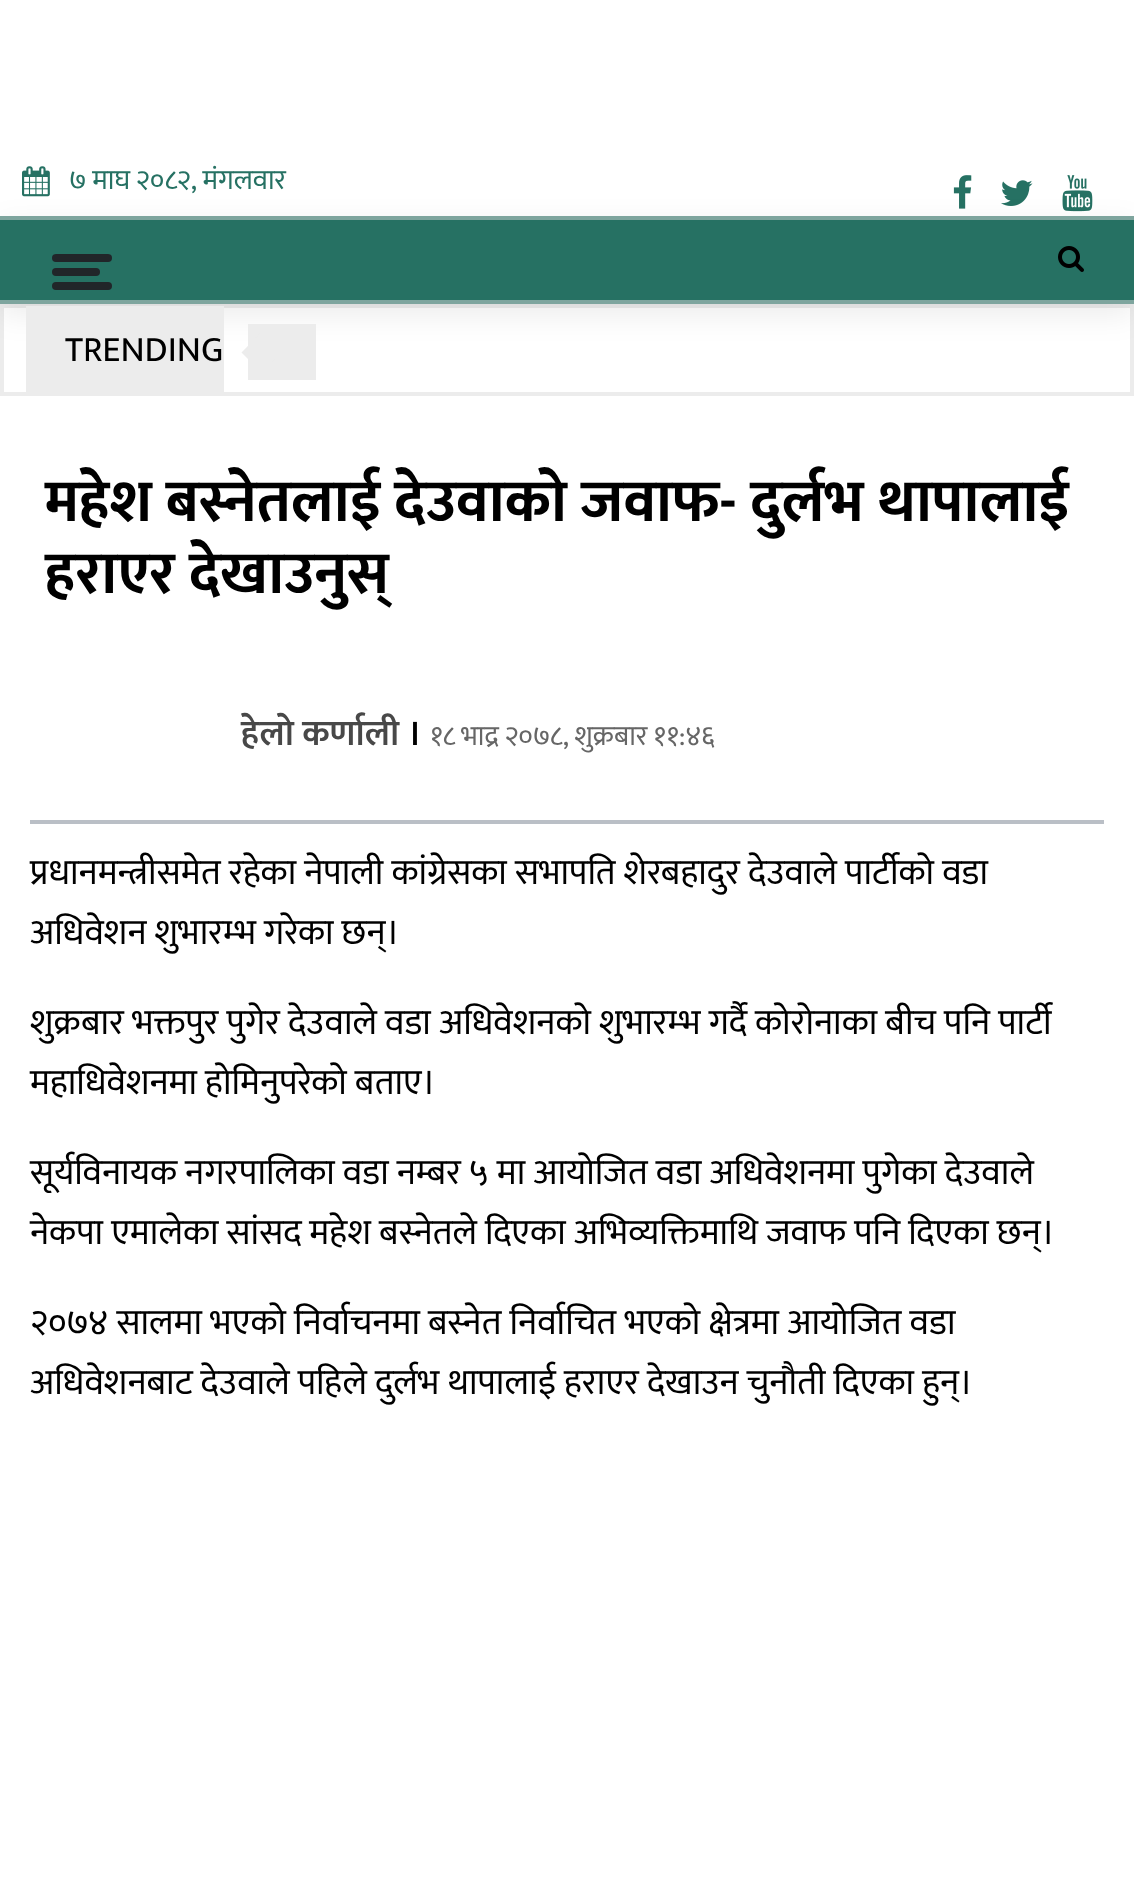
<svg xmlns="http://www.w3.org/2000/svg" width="1134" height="1887">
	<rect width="100%" height="100%" fill="#FFFFFF" />
	<image x="22" y="166" width="28" height="31" href="assets/img1.png" />
	<text x="69" y="189" word-spacing="-0.5" font-family="Mukta" font-size="28" fill="#267163">७ माघ २०८२, मंगलवार</text>
	<image x="953" y="175" width="19" height="34" href="assets/img2.png" />
	<image x="1001" y="180" width="32" height="26" href="assets/img3.png" />
	<image x="1062" y="175" width="31" height="37" href="assets/img4.png" />
	<rect x="2" y="306" width="1130" height="88" fill="none" stroke="#ECECEC" stroke-width="4" />
	<rect x="0" y="226" width="1134" height="88" fill="#000000" fill-opacity="0.08" filter="blur(15px)" />
	<rect x="0" y="220" width="1134" height="80" fill="#267163" />
	<rect x="0" y="216" width="1134" height="4" fill="#7EA59E" />
	<rect x="0" y="300" width="1134" height="4" fill="#7EA59E" />
	<rect x="52" y="254" width="60" height="8" rx="4" fill="#212529" />
	<rect x="52" y="282" width="60" height="8" rx="4" fill="#212529" />
	<rect x="52" y="268" width="48" height="8" rx="4" fill="#212529" />
	<image x="1058" y="246" width="26" height="26" href="assets/img5.png" />
	<rect x="26" y="306" width="198" height="86" fill="#ECECEC" />
	<rect x="248" y="324" width="68" height="56" fill="#ECECEC" />
	<text x="65" y="361" font-family="Mukta" font-size="36" fill="#000000">TRENDING</text>
	<path d="M261 332.5L281 352.5L261 372L241.5 352.5Z" fill="#ECECEC" />
	<g font-family="Mukta" font-size="60" font-weight="700" fill="#000000">
		<text x="45" y="521">महेश बस्नेतलाई देउवाको जवाफ- दुर्लभ थापालाई</text>
		<text x="45" y="593">हराएर देखाउनुस्</text>
	</g>
	<rect x="30" y="820" width="1074" height="4" fill="#BABFC6" />
	<text x="241" y="745" font-family="Mukta" font-size="36" font-weight="600" fill="#484848">हेलो कर्णाली</text>
	<text x="408" y="745" font-family="Mukta" font-size="36" font-weight="600" fill="#000000">।</text>
	<text x="430" y="745" word-spacing="-0.5" font-family="Mukta" font-size="28" fill="#666666">१८ भाद्र २०७८, शुक्रबार ११:४६</text>
	<g font-family="Mukta" font-size="36" fill="#000000">
		<text x="30" y="884">प्रधानमन्त्रीसमेत रहेका नेपाली कांग्रेसका सभापति शेरबहादुर देउवाले पार्टीको वडा</text>
		<text x="30" y="944">अधिवेशन शुभारम्भ गरेका छन्।</text>
		<text x="30" y="1034">शुक्रबार भक्तपुर पुगेर देउवाले वडा अधिवेशनको शुभारम्भ गर्दै कोरोनाका बीच पनि पार्टी</text>
		<text x="30" y="1094">महाधिवेशनमा होमिनुपरेको बताए।</text>
		<text x="30" y="1184">सूर्यविनायक नगरपालिका वडा नम्बर ५ मा आयोजित वडा अधिवेशनमा पुगेका देउवाले</text>
		<text x="30" y="1244">नेकपा एमालेका सांसद महेश बस्नेतले दिएका अभिव्यक्तिमाथि जवाफ पनि दिएका छन्।</text>
		<text x="30" y="1334">२०७४ सालमा भएको निर्वाचनमा बस्नेत निर्वाचित भएको क्षेत्रमा आयोजित वडा</text>
		<text x="30" y="1394">अधिवेशनबाट देउवाले पहिले दुर्लभ थापालाई हराएर देखाउन चुनौती दिएका हुन्।</text>
	</g>
</svg>
